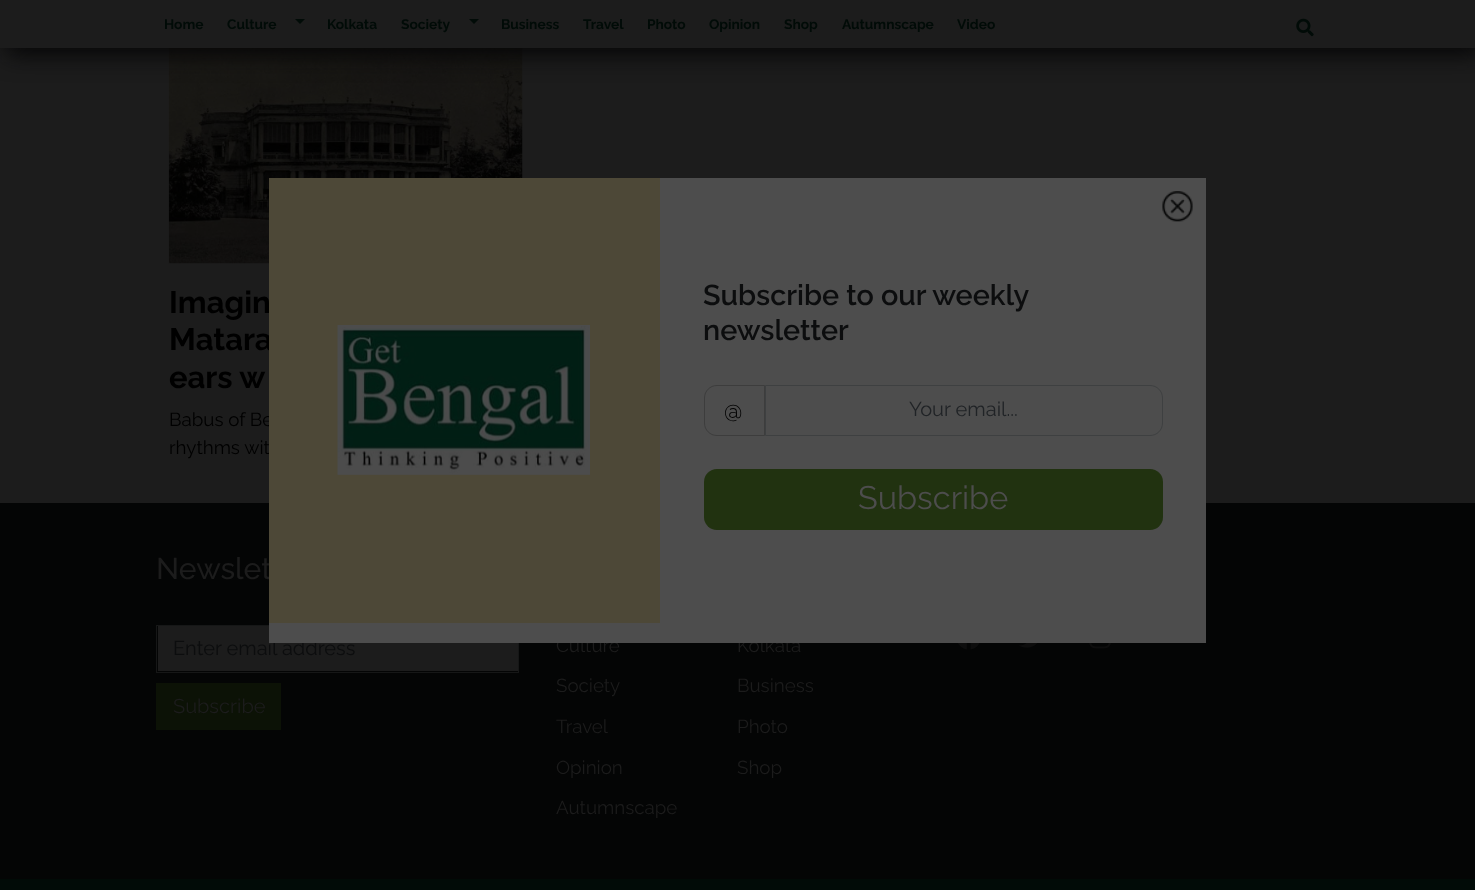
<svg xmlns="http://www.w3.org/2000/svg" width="1475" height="890">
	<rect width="100%" height="100%" fill="#1C1C1C" />
	<image x="168" y="48" width="355" height="216" href="assets/img2.png" />
	<rect x="6" y="6" width="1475" height="48" fill="#040405" filter="blur(12.5px)" />
	<rect x="0" y="0" width="1475" height="48" fill="#1C1C1C" />
	<g font-family="Raleway" font-size="13.75" font-weight="700" fill="#010B07">
		<text x="164" y="29">Home</text>
		<text x="227" y="29">Culture</text>
	</g>
	<path d="M295 19H305L300 24Z" fill="#010B07" />
	<g font-family="Raleway" font-size="13.75" font-weight="700" fill="#010B07">
		<text x="327" y="29">Kolkata</text>
		<text x="401" y="29">Society</text>
	</g>
	<path d="M469 19H479L474 24Z" fill="#010B07" />
	<g font-family="Raleway" font-size="13.75" font-weight="700" fill="#010B07">
		<text x="501" y="29">Business</text>
		<text x="583" y="29">Travel</text>
		<text x="647" y="29">Photo</text>
		<text x="709" y="29">Opinion</text>
		<text x="784" y="29">Shop</text>
		<text x="842" y="29">Autumnscape</text>
		<text x="957" y="29">Video</text>
	</g>
	<image x="1296" y="18" width="18" height="19" href="assets/img1.png" />
	<g font-family="Raleway" font-size="31" font-weight="700" fill="#000000">
		<text x="169" y="313">Imagin</text>
		<text x="169" y="350">Matara</text>
		<text x="169" y="388">ears w</text>
	</g>
	<g font-family="Raleway" font-size="18.75" fill="#000000">
		<text x="169" y="426">Babus of Be</text>
		<text x="169" y="454">rhythms wit</text>
	</g>
	<rect x="0" y="503" width="1475" height="376" fill="#040505" />
	<text x="156" y="579" font-family="Raleway" font-size="30" font-weight="500" fill="#1C1C1C">Newslet</text>
	<rect x="158" y="626" width="360" height="45" fill="#1C1C1C" />
	<rect x="156.5" y="625.5" width="362" height="47" fill="none" stroke="#161717" />
	<text x="173" y="655" font-family="Raleway" font-size="20" fill="#0C0D0E">Enter email address</text>
	<g font-family="Raleway" font-size="18.75" fill="#1C1C1C">
		<text x="556" y="652">Culture</text>
		<text x="737" y="652">Kolkata</text>
	</g>
	<rect x="269" y="178" width="937" height="465" fill="#4D4D4D" />
	<rect x="269" y="178" width="391" height="445" fill="#4D4837" />
	<image x="337" y="325" width="253" height="150" href="assets/img3.png" />
	<image x="1162" y="191" width="31" height="31" href="assets/img4.png" />
	<g font-family="Raleway" font-size="28.75" font-weight="600" fill="#0C0D0E">
		<text x="703" y="305">Subscribe to our weekly</text>
		<text x="703" y="340">newsletter</text>
	</g>
	<path d="M717 385.5H764.5V435.5H717C710 435.5 704.5 430 704.5 423V398C704.5 391 710 385.5 717 385.5Z" fill="none" stroke="#3D3D3D" />
	<text x="724" y="418" font-family="Raleway" font-size="22" fill="#000000">@</text>
	<path d="M765.5 385.5H1150C1157 385.5 1162.5 391 1162.5 398V423C1162.5 430 1157 435.5 1150 435.5H765.5Z" fill="none" stroke="#3E4041" />
	<text x="909" y="416" font-family="Raleway" font-size="20" fill="#202326">Your email...</text>
	<rect x="704" y="469" width="459" height="61" rx="13" fill="#213210" />
	<text x="858" y="509" font-family="Raleway" font-size="32.5" fill="#4D4D4D">Subscribe</text>
	<rect x="156" y="683" width="125" height="47" fill="#0C1206" />
	<text x="173" y="713" font-family="Raleway" font-size="20" fill="#1C1C1C">Subscribe</text>
	<g font-family="Raleway" font-size="18.75" fill="#1C1C1C">
		<text x="556" y="692">Society</text>
		<text x="737" y="692">Business</text>
		<text x="556" y="733">Travel</text>
		<text x="737" y="733">Photo</text>
		<text x="556" y="774">Opinion</text>
		<text x="737" y="774">Shop</text>
		<text x="556" y="814">Autumnscape</text>
	</g>
	<image x="958" y="643" width="22" height="7" href="assets/img5.png" />
	<image x="1019" y="643" width="19" height="5" href="assets/img6.png" />
	<image x="1089" y="643" width="22" height="6" href="assets/img7.png" />
	<rect x="0" y="879" width="1475" height="11" fill="#010B07" />
</svg>
